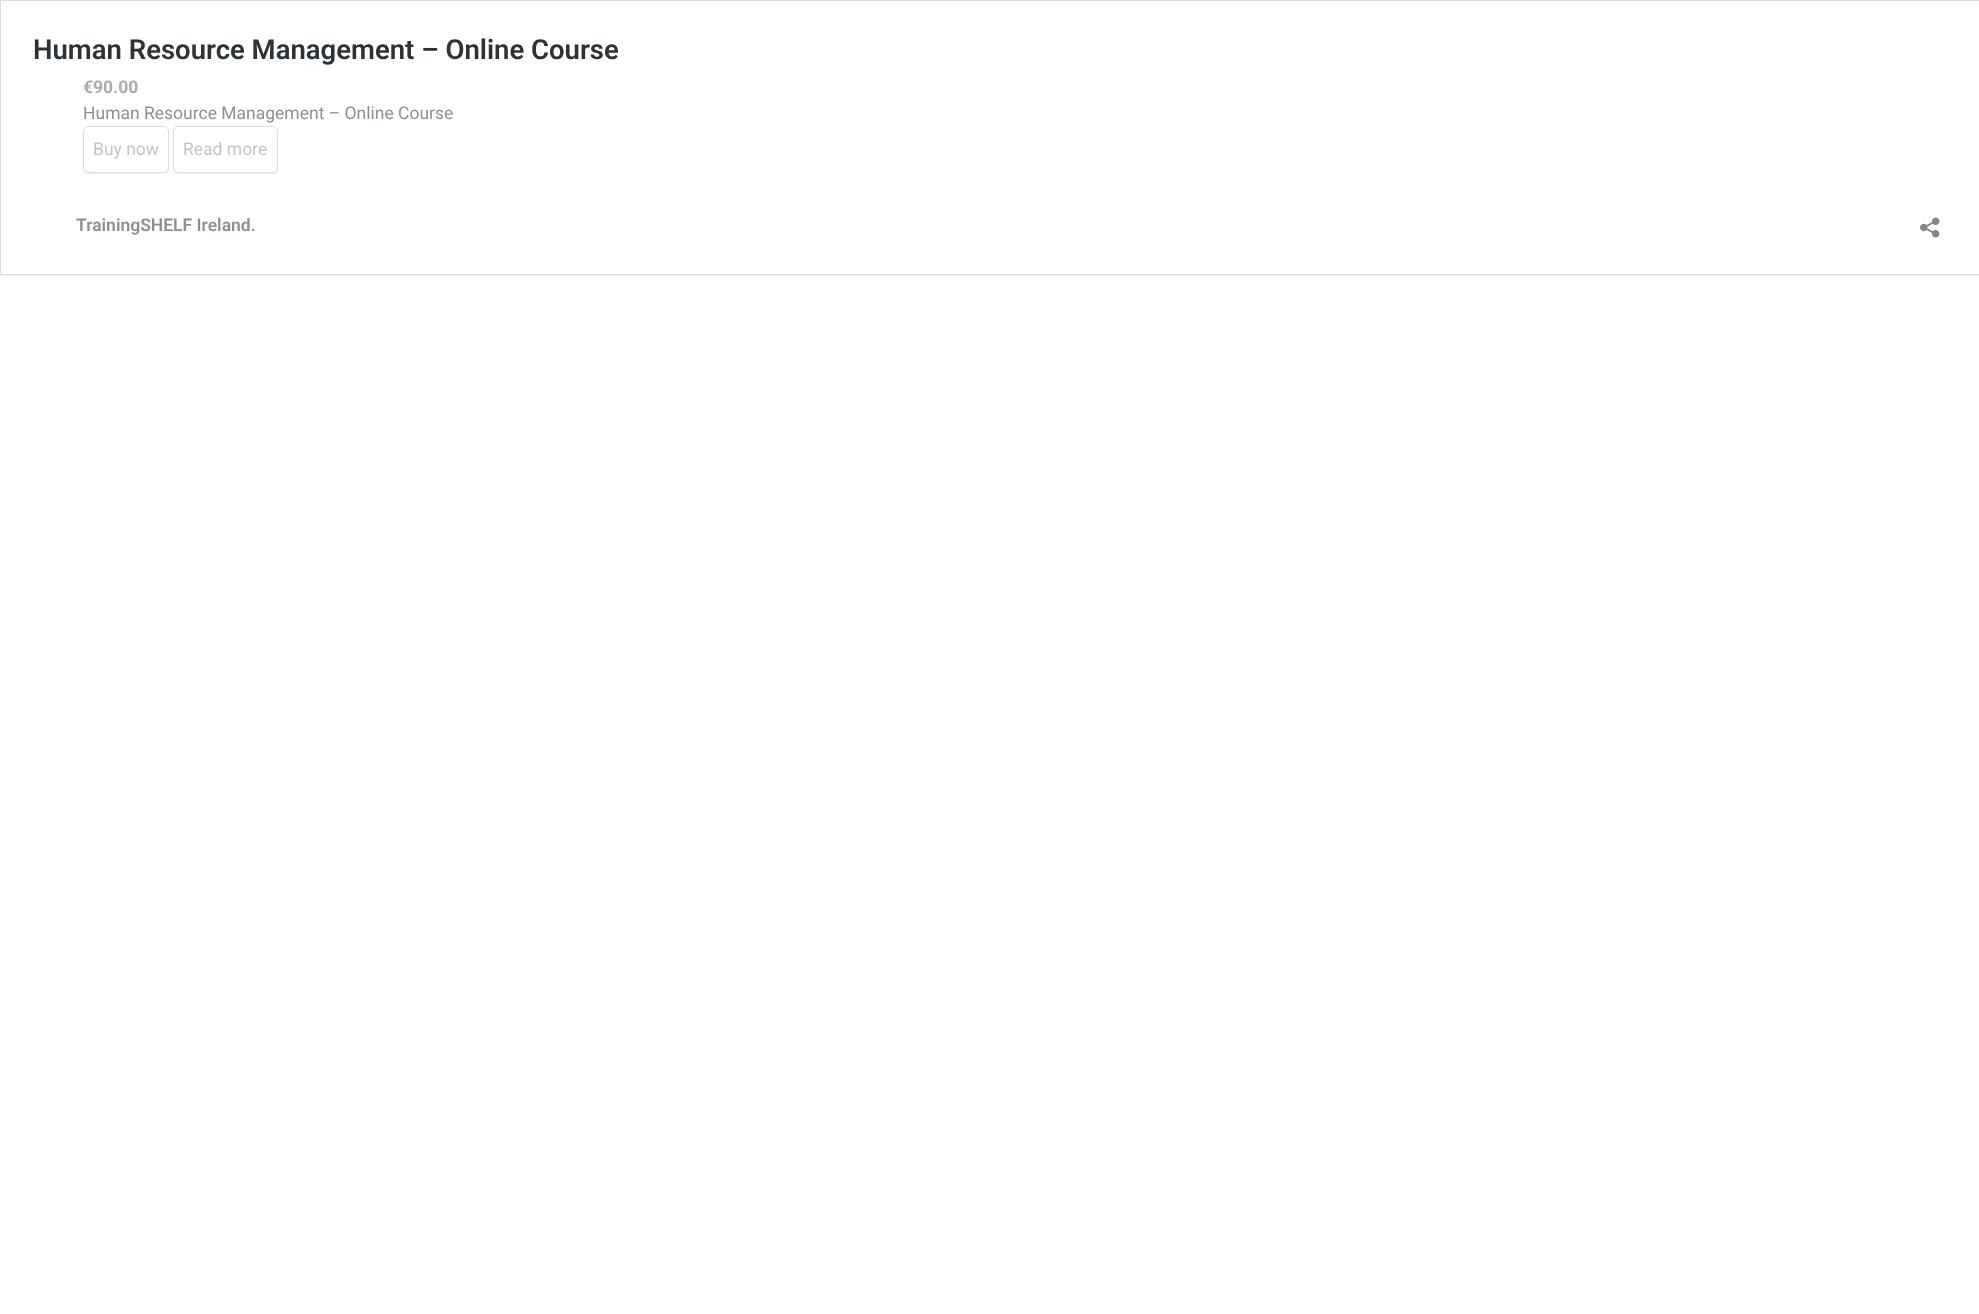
<svg xmlns="http://www.w3.org/2000/svg" width="1979" height="1314">
	<defs>
		<clipPath id="clip1"><rect x="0" y="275" width="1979" height="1" /></clipPath>
	</defs>
	<rect width="100%" height="100%" fill="#FFFFFF" />
	<g clip-path="url(#clip1)">
		<rect x="0" y="1" width="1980" height="275" fill="#000000" fill-opacity="0.05" filter="blur(0.5px)" />
	</g>
	<rect x="0.5" y="0.5" width="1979" height="274" fill="none" stroke="#DCDCDE" />
	<text x="33" y="59" font-family="Roboto" font-size="27.5" font-weight="600" fill="#2C3338">Human Resource Management – Online Course</text>
	<text x="83" y="93" font-family="Roboto" font-size="17.5" font-weight="700" fill="#A9ABAF">€90.00</text>
	<text x="83" y="119" font-family="Roboto" font-size="17.5" fill="#8C8F94">Human Resource Management – Online Course</text>
	<path d="M83 170C84 177 98 174 101 174H151C171 174 169 176 169 157V131V168C169 170 167 172 164 172H88C86 172 84 171 83 170Z" fill="#F2F2F2" />
	<rect x="83.5" y="126.5" width="85" height="46" rx="4.5" fill="none" stroke="#DDDDDD" />
	<text x="93" y="155" font-family="Roboto" font-size="17.5" fill="#C3C4C7">Buy now</text>
	<path d="M173 170C173 172 176 174 178 174H273C276 174 278 172 278 169V133L277 131L278 155C278 176 279 172 257 172H193C193 172 176 176 173 170Z" fill="#F2F2F2" />
	<rect x="173.5" y="126.5" width="104" height="46" rx="4.5" fill="none" stroke="#DDDDDD" />
	<text x="183" y="155" font-family="Roboto" font-size="17.5" fill="#C3C4C7">Read more</text>
	<text x="76" y="231" font-family="Roboto" font-size="17.5" font-weight="600" fill="#8C8F94">TrainingSHELF Ireland.</text>
	<image x="1920" y="217" width="20" height="21" href="assets/img1.png" />
</svg>
